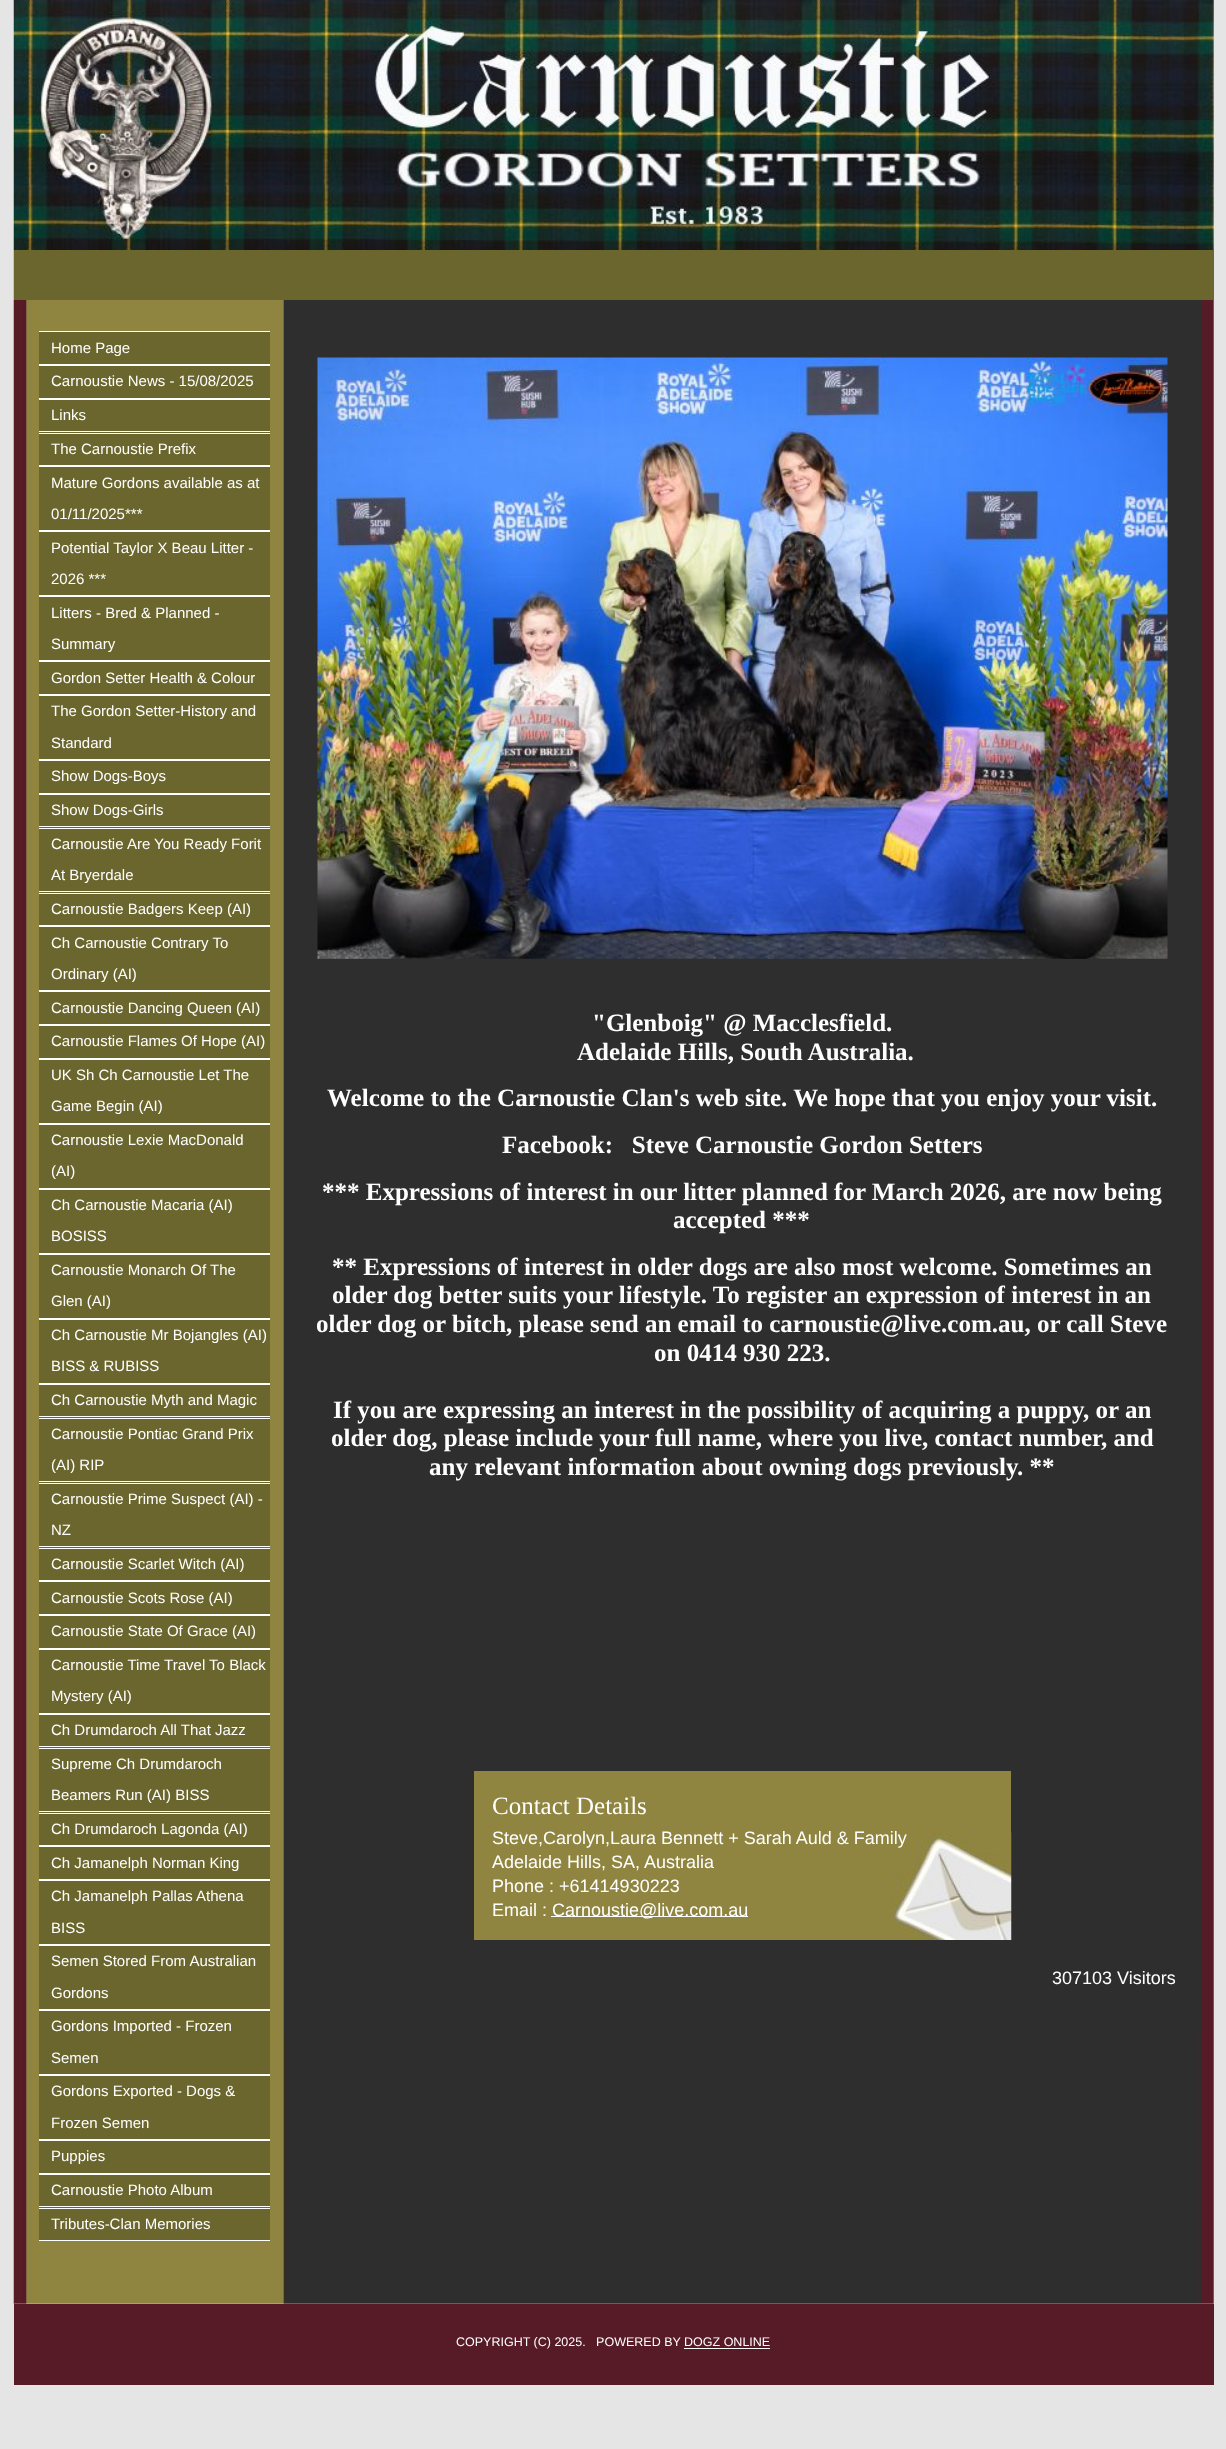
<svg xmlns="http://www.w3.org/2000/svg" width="1226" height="2449">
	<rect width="100%" height="100%" fill="#E5E5E5" />
	<rect x="14" y="0" width="1200" height="2304" fill="#FFFFFF" />
	<image x="13" y="0" width="1201" height="250" href="assets/img1.png" />
	<rect x="14" y="250" width="1200" height="50" fill="#6B662E" />
	<rect x="13" y="250" width="1" height="50" fill="#C7C6B8" />
	<image x="13" y="300" width="1201" height="2004" href="assets/img2.png" />
	<rect x="39" y="332" width="231" height="1908" fill="#6B662E" />
	<rect x="39" y="331" width="231" height="1" fill="#FFFFFF" />
	<rect x="39" y="364" width="231" height="2" fill="#FFFFFF" />
	<text x="51" y="353" font-family="Liberation Sans" font-size="15" fill="#FFFFFF">Home Page</text>
	<rect x="39" y="398" width="231" height="2" fill="#FFFFFF" />
	<text x="51" y="386" font-family="Liberation Sans" font-size="15" fill="#FFFFFF">Carnoustie News - 15/08/2025</text>
	<rect x="39" y="431" width="231" height="1" fill="#FFFFFF" />
	<text x="51" y="420" font-family="Liberation Sans" font-size="15" fill="#FFFFFF">Links</text>
	<rect x="39" y="433" width="231" height="1" fill="#FFFFFF" />
	<rect x="39" y="465" width="231" height="2" fill="#FFFFFF" />
	<text x="51" y="454" font-family="Liberation Sans" font-size="15" fill="#FFFFFF">The Carnoustie Prefix</text>
	<rect x="39" y="530" width="231" height="2" fill="#FFFFFF" />
	<g font-family="Liberation Sans" font-size="15" fill="#FFFFFF">
		<text x="51" y="488">Mature Gordons available as at</text>
		<text x="51" y="519">01/11/2025***</text>
	</g>
	<rect x="39" y="595" width="231" height="2" fill="#FFFFFF" />
	<g font-family="Liberation Sans" font-size="15" fill="#FFFFFF">
		<text x="51" y="553">Potential Taylor X Beau Litter -</text>
		<text x="51" y="584">2026 ***</text>
	</g>
	<rect x="39" y="660" width="231" height="2" fill="#FFFFFF" />
	<g font-family="Liberation Sans" font-size="15" fill="#FFFFFF">
		<text x="51" y="618">Litters - Bred &amp; Planned -</text>
		<text x="51" y="649">Summary</text>
	</g>
	<rect x="39" y="694" width="231" height="2" fill="#FFFFFF" />
	<text x="51" y="683" font-family="Liberation Sans" font-size="15" fill="#FFFFFF">Gordon Setter Health &amp; Colour</text>
	<rect x="39" y="759" width="231" height="2" fill="#FFFFFF" />
	<g font-family="Liberation Sans" font-size="15" fill="#FFFFFF">
		<text x="51" y="716">The Gordon Setter-History and</text>
		<text x="51" y="748">Standard</text>
	</g>
	<rect x="39" y="793" width="231" height="2" fill="#FFFFFF" />
	<text x="51" y="781" font-family="Liberation Sans" font-size="15" fill="#FFFFFF">Show Dogs-Boys</text>
	<rect x="39" y="826" width="231" height="1" fill="#FFFFFF" />
	<text x="51" y="815" font-family="Liberation Sans" font-size="15" fill="#FFFFFF">Show Dogs-Girls</text>
	<rect x="39" y="828" width="231" height="1" fill="#FFFFFF" />
	<rect x="39" y="891" width="231" height="1" fill="#FFFFFF" />
	<g font-family="Liberation Sans" font-size="15" fill="#FFFFFF">
		<text x="51" y="849">Carnoustie Are You Ready Forit</text>
		<text x="51" y="880">At Bryerdale</text>
	</g>
	<rect x="39" y="893" width="231" height="1" fill="#FFFFFF" />
	<rect x="39" y="925" width="231" height="2" fill="#FFFFFF" />
	<text x="51" y="914" font-family="Liberation Sans" font-size="15" fill="#FFFFFF">Carnoustie Badgers Keep (AI)</text>
	<rect x="39" y="990" width="231" height="2" fill="#FFFFFF" />
	<g font-family="Liberation Sans" font-size="15" fill="#FFFFFF">
		<text x="51" y="948">Ch Carnoustie Contrary To</text>
		<text x="51" y="979">Ordinary (AI)</text>
	</g>
	<rect x="39" y="1024" width="231" height="2" fill="#FFFFFF" />
	<text x="51" y="1013" font-family="Liberation Sans" font-size="15" fill="#FFFFFF">Carnoustie Dancing Queen (AI)</text>
	<rect x="39" y="1058" width="231" height="2" fill="#FFFFFF" />
	<text x="51" y="1046" font-family="Liberation Sans" font-size="15" fill="#FFFFFF">Carnoustie Flames Of Hope (AI)</text>
	<rect x="39" y="1123" width="231" height="2" fill="#FFFFFF" />
	<g font-family="Liberation Sans" font-size="15" fill="#FFFFFF">
		<text x="51" y="1080">UK Sh Ch Carnoustie Let The</text>
		<text x="51" y="1111">Game Begin (AI)</text>
	</g>
	<rect x="39" y="1188" width="231" height="2" fill="#FFFFFF" />
	<g font-family="Liberation Sans" font-size="15" fill="#FFFFFF">
		<text x="51" y="1145">Carnoustie Lexie MacDonald</text>
		<text x="51" y="1176">(AI)</text>
	</g>
	<rect x="39" y="1253" width="231" height="2" fill="#FFFFFF" />
	<g font-family="Liberation Sans" font-size="15" fill="#FFFFFF">
		<text x="51" y="1210">Ch Carnoustie Macaria (AI)</text>
		<text x="51" y="1241">BOSISS</text>
	</g>
	<rect x="39" y="1318" width="231" height="2" fill="#FFFFFF" />
	<g font-family="Liberation Sans" font-size="15" fill="#FFFFFF">
		<text x="51" y="1275">Carnoustie Monarch Of The</text>
		<text x="51" y="1306">Glen (AI)</text>
	</g>
	<rect x="39" y="1383" width="231" height="2" fill="#FFFFFF" />
	<g font-family="Liberation Sans" font-size="15" fill="#FFFFFF">
		<text x="51" y="1340">Ch Carnoustie Mr Bojangles (AI)</text>
		<text x="51" y="1371">BISS &amp; RUBISS</text>
	</g>
	<rect x="39" y="1416" width="231" height="1" fill="#FFFFFF" />
	<text x="51" y="1405" font-family="Liberation Sans" font-size="15" fill="#FFFFFF">Ch Carnoustie Myth and Magic</text>
	<rect x="39" y="1418" width="231" height="1" fill="#FFFFFF" />
	<rect x="39" y="1481" width="231" height="1" fill="#FFFFFF" />
	<g font-family="Liberation Sans" font-size="15" fill="#FFFFFF">
		<text x="51" y="1439">Carnoustie Pontiac Grand Prix</text>
		<text x="51" y="1470">(AI) RIP</text>
	</g>
	<rect x="39" y="1483" width="231" height="1" fill="#FFFFFF" />
	<rect x="39" y="1546" width="231" height="1" fill="#FFFFFF" />
	<g font-family="Liberation Sans" font-size="15" fill="#FFFFFF">
		<text x="51" y="1504">Carnoustie Prime Suspect (AI) -</text>
		<text x="51" y="1535">NZ</text>
	</g>
	<rect x="39" y="1548" width="231" height="1" fill="#FFFFFF" />
	<rect x="39" y="1580" width="231" height="2" fill="#FFFFFF" />
	<text x="51" y="1569" font-family="Liberation Sans" font-size="15" fill="#FFFFFF">Carnoustie Scarlet Witch (AI)</text>
	<rect x="39" y="1614" width="231" height="2" fill="#FFFFFF" />
	<text x="51" y="1603" font-family="Liberation Sans" font-size="15" fill="#FFFFFF">Carnoustie Scots Rose (AI)</text>
	<rect x="39" y="1648" width="231" height="2" fill="#FFFFFF" />
	<text x="51" y="1636" font-family="Liberation Sans" font-size="15" fill="#FFFFFF">Carnoustie State Of Grace (AI)</text>
	<rect x="39" y="1713" width="231" height="2" fill="#FFFFFF" />
	<g font-family="Liberation Sans" font-size="15" fill="#FFFFFF">
		<text x="51" y="1670">Carnoustie Time Travel To Black</text>
		<text x="51" y="1701">Mystery (AI)</text>
	</g>
	<rect x="39" y="1746" width="231" height="1" fill="#FFFFFF" />
	<text x="51" y="1735" font-family="Liberation Sans" font-size="15" fill="#FFFFFF">Ch Drumdaroch All That Jazz</text>
	<rect x="39" y="1748" width="231" height="1" fill="#FFFFFF" />
	<rect x="39" y="1811" width="231" height="1" fill="#FFFFFF" />
	<g font-family="Liberation Sans" font-size="15" fill="#FFFFFF">
		<text x="51" y="1769">Supreme Ch Drumdaroch</text>
		<text x="51" y="1800">Beamers Run (AI) BISS</text>
	</g>
	<rect x="39" y="1813" width="231" height="1" fill="#FFFFFF" />
	<rect x="39" y="1845" width="231" height="2" fill="#FFFFFF" />
	<text x="51" y="1834" font-family="Liberation Sans" font-size="15" fill="#FFFFFF">Ch Drumdaroch Lagonda (AI)</text>
	<rect x="39" y="1879" width="231" height="2" fill="#FFFFFF" />
	<text x="51" y="1868" font-family="Liberation Sans" font-size="15" fill="#FFFFFF">Ch Jamanelph Norman King</text>
	<rect x="39" y="1944" width="231" height="2" fill="#FFFFFF" />
	<g font-family="Liberation Sans" font-size="15" fill="#FFFFFF">
		<text x="51" y="1901">Ch Jamanelph Pallas Athena</text>
		<text x="51" y="1933">BISS</text>
	</g>
	<rect x="39" y="2009" width="231" height="2" fill="#FFFFFF" />
	<g font-family="Liberation Sans" font-size="15" fill="#FFFFFF">
		<text x="51" y="1966">Semen Stored From Australian</text>
		<text x="51" y="1998">Gordons</text>
	</g>
	<rect x="39" y="2074" width="231" height="2" fill="#FFFFFF" />
	<g font-family="Liberation Sans" font-size="15" fill="#FFFFFF">
		<text x="51" y="2031">Gordons Imported - Frozen</text>
		<text x="51" y="2063">Semen</text>
	</g>
	<rect x="39" y="2139" width="231" height="2" fill="#FFFFFF" />
	<g font-family="Liberation Sans" font-size="15" fill="#FFFFFF">
		<text x="51" y="2096">Gordons Exported - Dogs &amp;</text>
		<text x="51" y="2128">Frozen Semen</text>
	</g>
	<rect x="39" y="2173" width="231" height="2" fill="#FFFFFF" />
	<text x="51" y="2161" font-family="Liberation Sans" font-size="15" fill="#FFFFFF">Puppies</text>
	<rect x="39" y="2206" width="231" height="1" fill="#FFFFFF" />
	<text x="51" y="2195" font-family="Liberation Sans" font-size="15" fill="#FFFFFF">Carnoustie Photo Album</text>
	<rect x="39" y="2208" width="231" height="1" fill="#FFFFFF" />
	<rect x="39" y="2240" width="231" height="1" fill="#FFFFFF" />
	<text x="51" y="2229" font-family="Liberation Sans" font-size="15" fill="#FFFFFF">Tributes-Clan Memories</text>
	<rect x="284" y="300" width="917" height="1735" fill="#2E2E2E" />
	<image x="317" y="357" width="851" height="602" href="assets/img3.png" />
	<g font-family="Liberation Serif" font-size="25" font-weight="700" fill="#FFFFFF">
		<text x="592" y="1031">"Glenboig" @ Macclesfield.</text>
		<text x="577" y="1060">Adelaide Hills, South Australia.</text>
		<text x="327" y="1106">Welcome to the Carnoustie Clan's web site. We hope that you enjoy your visit.</text>
		<text x="502" y="1153" xml:space="preserve">Facebook:   Steve Carnoustie Gordon Setters</text>
		<text x="322" y="1200">*** Expressions of interest in our litter planned for March 2026, are now being</text>
		<text x="673" y="1228">accepted ***</text>
		<text x="332" y="1275">** Expressions of interest in older dogs are also most welcome. Sometimes an</text>
		<text x="332" y="1303">older dog better suits your lifestyle. To register an expression of interest in an</text>
		<text x="316" y="1332">older dog or bitch, please send an email to carnoustie@live.com.au, or call Steve</text>
		<text x="654" y="1361">on 0414 930 223.</text>
		<text x="333" y="1418">If you are expressing an interest in the possibility of acquiring a puppy, or an</text>
		<text x="331" y="1446">older dog, please include your full name, where you live, contact number, and</text>
		<text x="429" y="1475">any relevant information about owning dogs previously. **</text>
	</g>
	<rect x="474" y="1771" width="537" height="169" fill="#908540" />
	<image x="891" y="1832" width="121" height="108" href="assets/img4.png" />
	<text x="492" y="1814" font-family="Liberation Serif" font-size="25" fill="#FFFFFF">Contact Details</text>
	<g font-family="Liberation Sans" font-size="18" fill="#FFFFFF">
		<text x="492" y="1844">Steve,Carolyn,Laura Bennett + Sarah Auld &amp; Family</text>
		<text x="492" y="1868">Adelaide Hills, SA, Australia</text>
		<text x="492" y="1892">Phone : +61414930223</text>
		<text x="492" y="1916">Email :</text>
	</g>
	<rect x="551" y="1916" width="197" height="1" fill="#FFFFFF" />
	<g font-family="Liberation Sans" font-size="18" fill="#FFFFFF">
		<text x="552" y="1916">Carnoustie@live.com.au</text>
		<text x="1052" y="1984">307103 Visitors</text>
	</g>
	<rect x="14" y="2304" width="1200" height="81" fill="#571A27" />
	<text x="456" y="2346" font-family="Liberation Sans" font-size="12.5" fill="#FFFFFF" xml:space="preserve">COPYRIGHT (C) 2025.   POWERED BY DOGZ ONLINE</text>
	<rect x="684" y="2348" width="86" height="1" fill="#FFFFFF" />
</svg>
